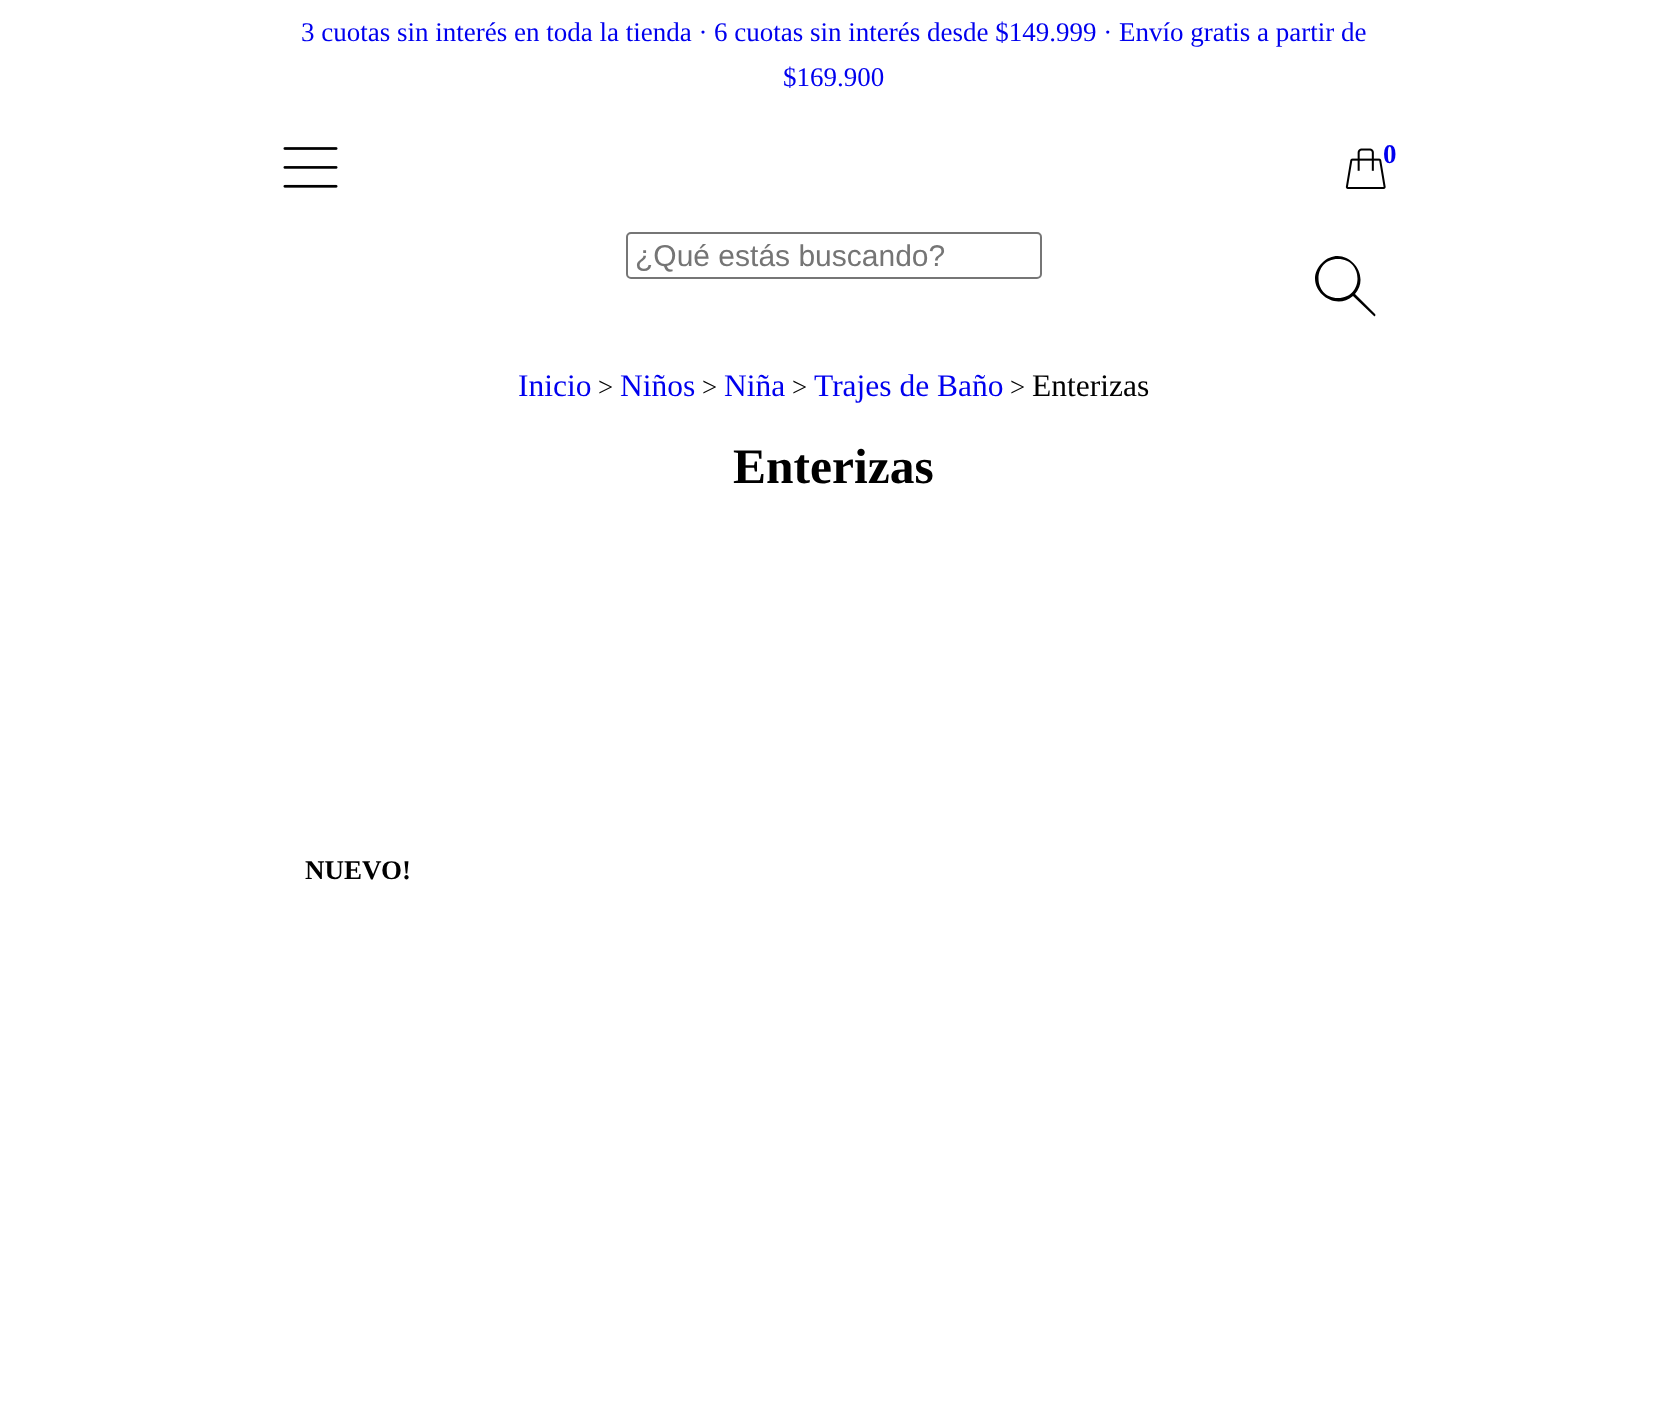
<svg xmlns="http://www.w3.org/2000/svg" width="1666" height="1409">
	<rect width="100%" height="100%" fill="#FFFFFF" />
	<g font-family="Liberation Serif" font-size="27" fill="#0000EE">
		<text x="301" y="41">3 cuotas sin interés en toda la tienda · 6 cuotas sin interés desde $149.999 · Envío gratis a partir de</text>
		<text x="783" y="86">$169.900</text>
	</g>
	<image x="283" y="147" width="55" height="41" href="assets/img1.png" />
	<image x="1345" y="148" width="41" height="41" href="assets/img2.png" />
	<text x="1383" y="163" font-family="Liberation Serif" font-size="27" font-weight="700" fill="#0000EE">0</text>
	<rect x="627" y="233" width="414" height="45" rx="4" fill="none" stroke="#767676" stroke-width="2" />
	<text x="635" y="266" font-family="Liberation Sans" font-size="30" fill="#757575">¿Qué estás buscando?</text>
	<path d="M1375 314C1376 315 1375 317 1374 316L1353 296C1332 314 1301 284 1322 263C1343 242 1373 273 1355 294ZM1338 298C1364 298 1364 259 1338 259C1312 259 1312 298 1338 298Z" fill="#000000" />
	<text x="518" y="396" font-family="Liberation Serif" font-size="31.5" fill="#0000EE">Inicio</text>
	<text x="598" y="396" font-family="Liberation Serif" font-size="27" fill="#000000">&gt;</text>
	<text x="620" y="396" font-family="Liberation Serif" font-size="31.5" fill="#0000EE">Niños</text>
	<text x="702" y="396" font-family="Liberation Serif" font-size="27" fill="#000000">&gt;</text>
	<text x="724" y="396" font-family="Liberation Serif" font-size="31.5" fill="#0000EE">Niña</text>
	<text x="792" y="396" font-family="Liberation Serif" font-size="27" fill="#000000">&gt;</text>
	<text x="814" y="396" font-family="Liberation Serif" font-size="31.5" fill="#0000EE">Trajes de Baño</text>
	<text x="1010" y="396" font-family="Liberation Serif" font-size="27" fill="#000000">&gt;</text>
	<text x="1032" y="396" font-family="Liberation Serif" font-size="31.5" fill="#000000">Enterizas</text>
	<text x="733" y="483" font-family="Liberation Serif" font-size="49.5" font-weight="700" fill="#000000">Enterizas</text>
	<text x="305" y="879" font-family="Liberation Serif" font-size="27" font-weight="700" fill="#000000">NUEVO!</text>
</svg>
